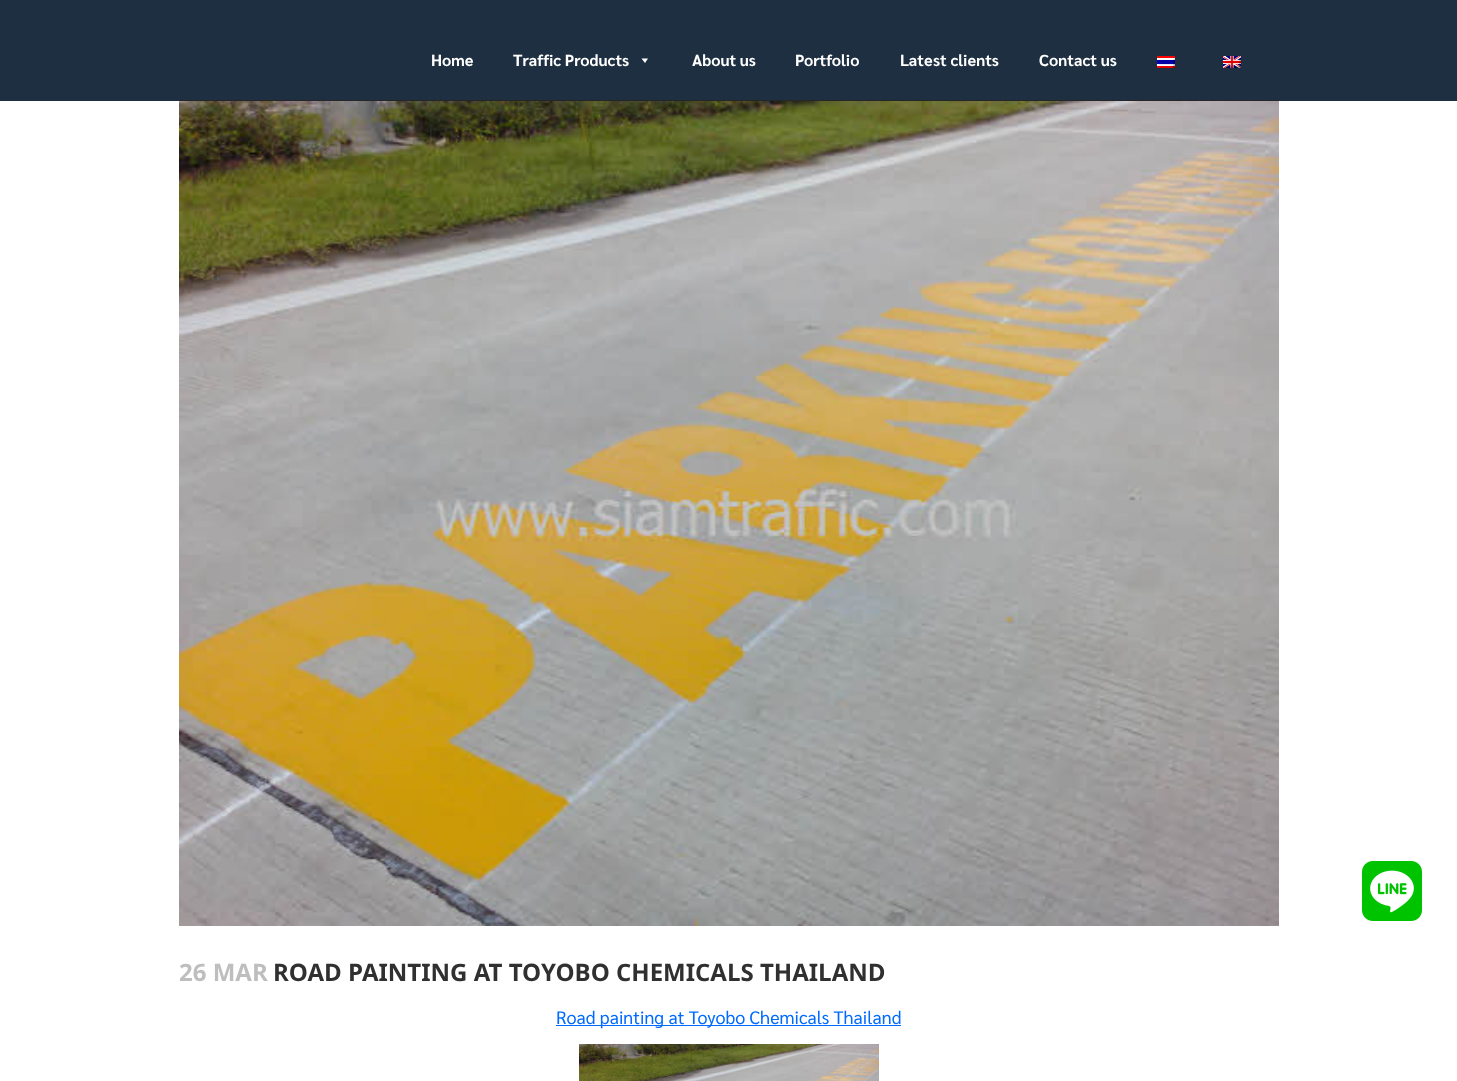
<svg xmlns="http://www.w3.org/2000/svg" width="1457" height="1081">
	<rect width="100%" height="100%" fill="#FFFFFF" />
	<rect x="0" y="0" width="1457" height="101" fill="#1E2F41" />
	<rect x="179" y="100" width="1100" height="1" fill="#262626" />
	<g font-family="Sarabun" font-size="16" font-weight="700" fill="#FFFFFF">
		<text x="431" y="66">Home</text>
		<text x="513" y="66">Traffic Products</text>
	</g>
	<path d="M648 58.5L645 63L641.5 58.5Z" fill="#FFFFFF" />
	<g font-family="Sarabun" font-size="16" font-weight="700" fill="#FFFFFF">
		<text x="692" y="66">About us</text>
		<text x="795" y="66">Portfolio</text>
		<text x="900" y="66">Latest clients</text>
		<text x="1039" y="66">Contact us</text>
	</g>
	<image x="1157" y="56" width="18" height="12" href="assets/img1.png" />
	<image x="1223" y="56" width="18" height="12" href="assets/img2.png" />
	<image x="1362" y="861" width="60" height="60" href="assets/img3.png" />
	<image x="179" y="101" width="1100" height="825" href="assets/img4.png" />
	<text x="179" y="981" font-family="Noto Sans Thai" font-size="24" font-weight="700" fill="#BEBEBE">26 MAR</text>
	<text x="273" y="981" font-family="Noto Sans Thai" font-size="24" font-weight="700" fill="#303030">ROAD PAINTING AT TOYOBO CHEMICALS THAILAND</text>
	<rect x="556" y="1025" width="345" height="1" fill="#006AFF" />
	<text x="556" y="1024" font-family="Sarabun" font-size="18" fill="#006AFF">Road painting at Toyobo Chemicals Thailand</text>
	<image x="579" y="1044" width="300" height="37" href="assets/img5.png" />
</svg>
